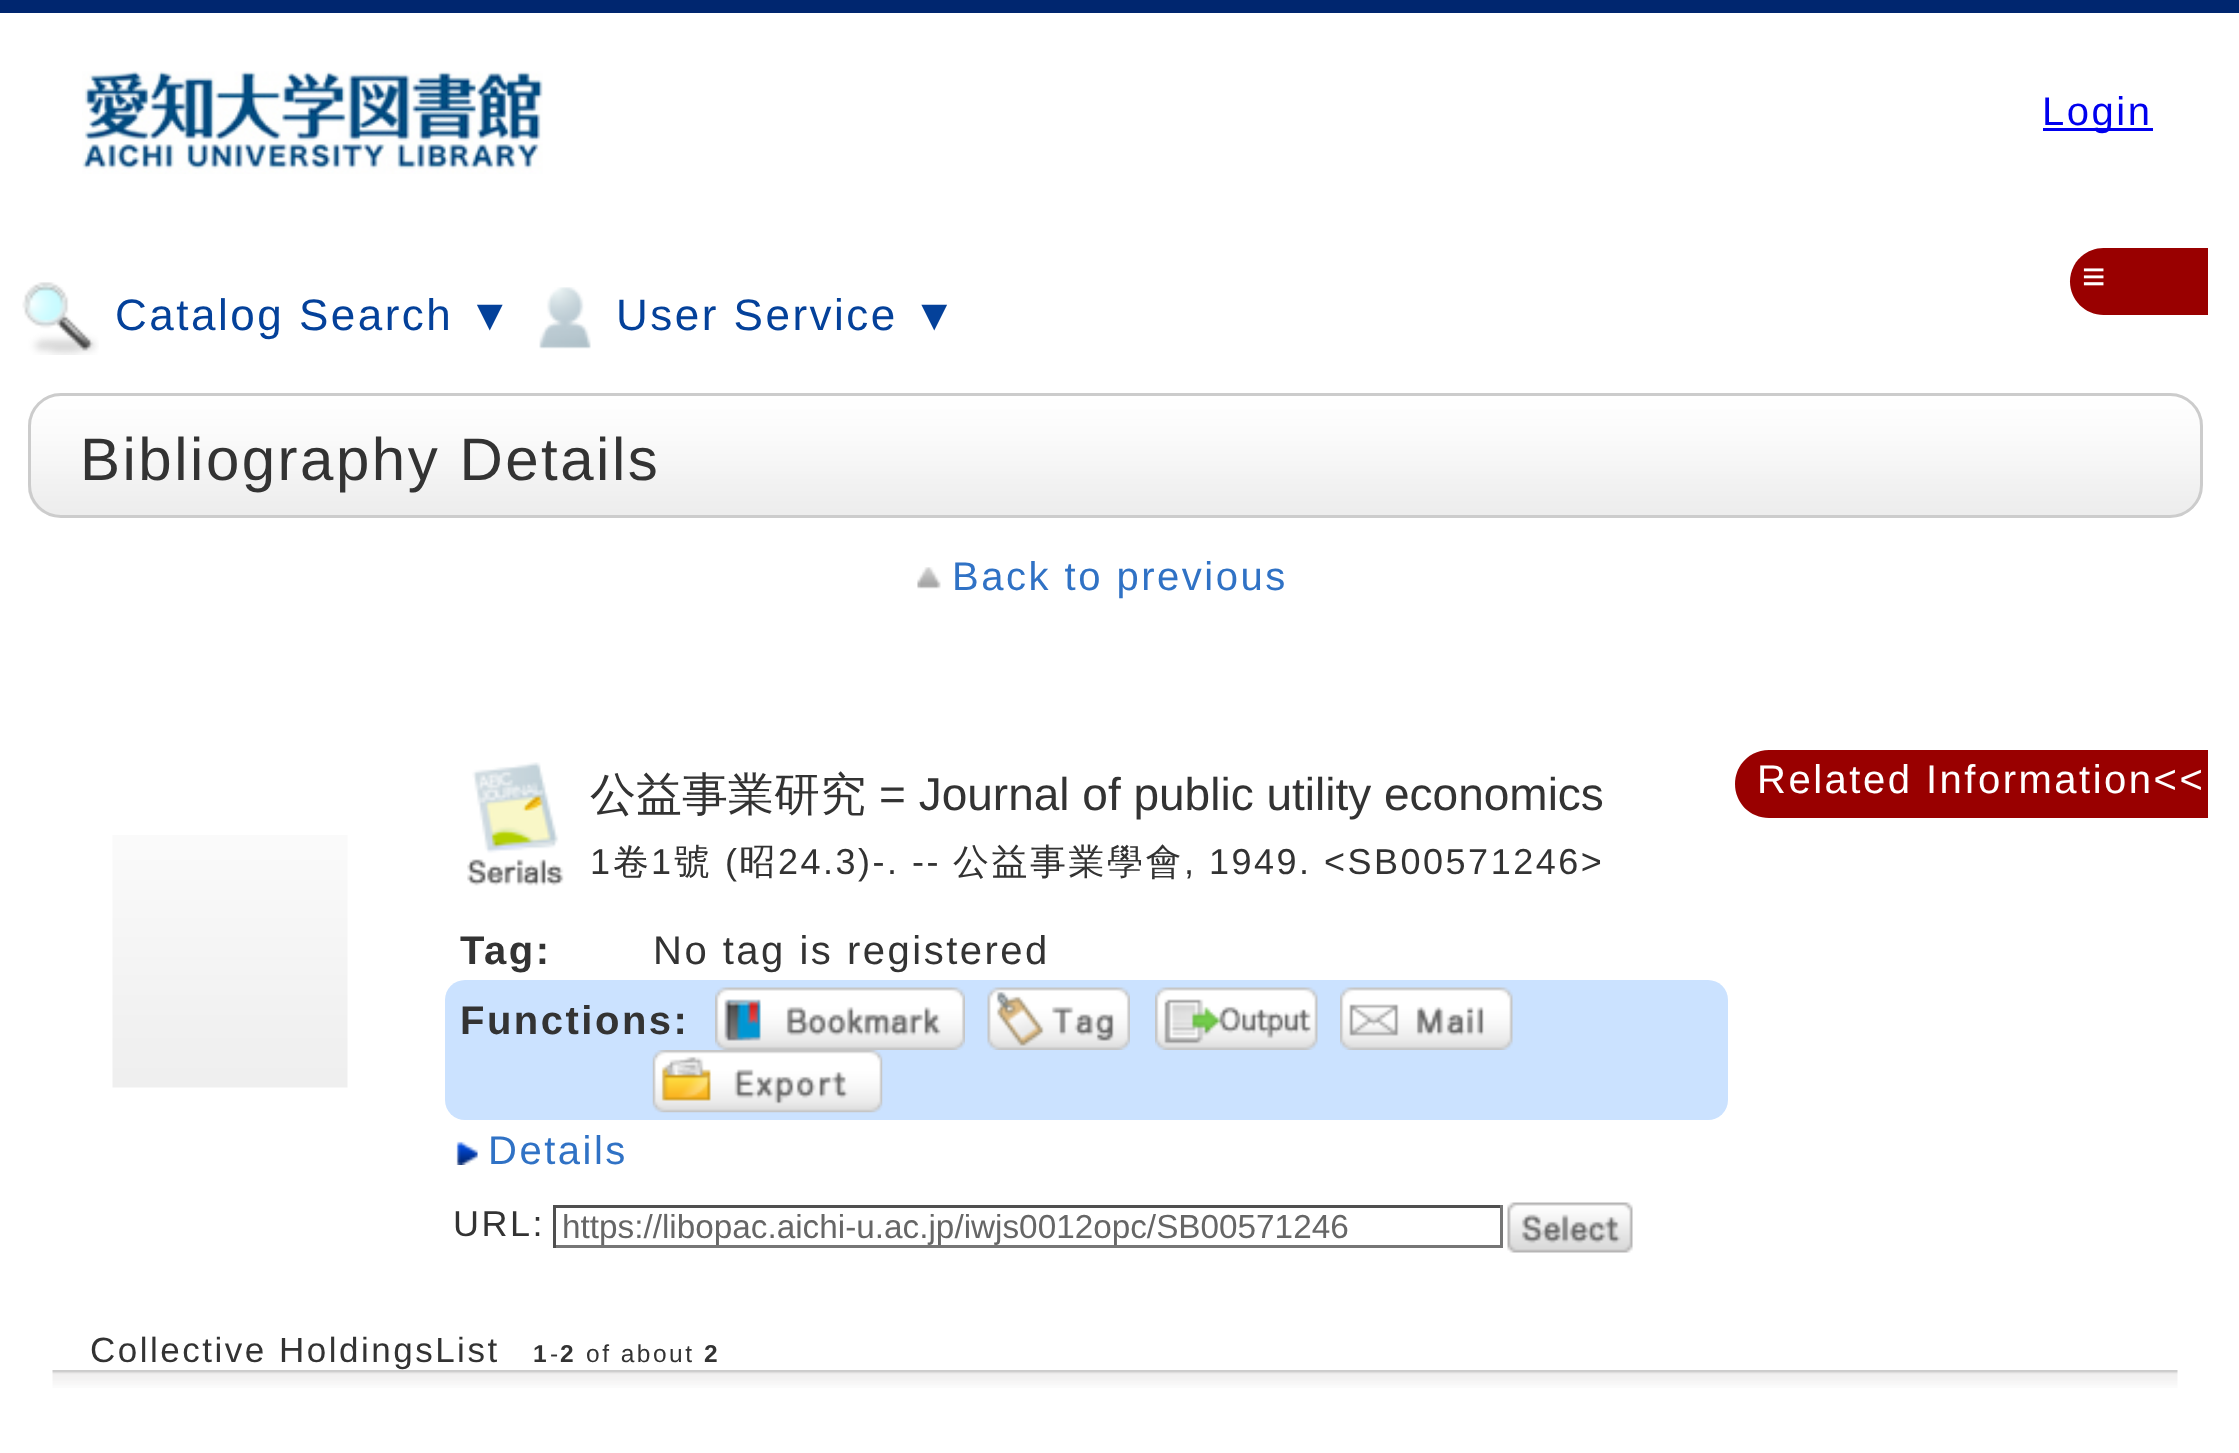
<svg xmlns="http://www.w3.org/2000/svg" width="2239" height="1453">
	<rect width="100%" height="100%" fill="#FFFFFF" />
	<rect x="0" y="0" width="2239" height="13" fill="#00266F" />
	<image x="82" y="71" width="461" height="103" href="assets/img1.png" />
	<rect x="2043" y="128" width="110" height="3" fill="#0000EE" />
	<text x="2042" y="125" font-family="Liberation Sans" font-size="40" letter-spacing="2.5" fill="#0000EE">Login</text>
	<path d="M2103.5 248H2208V315H2103.5C2085 315 2070 300 2070 281.5C2070 263 2085 248 2103.5 248Z" fill="#990000" />
	<text x="2082" y="290" font-family="Liberation Sans" font-size="40" letter-spacing="2.5" fill="#FFFFFF">≡</text>
	<image x="22" y="282" width="77" height="73" href="assets/img2.png" />
	<text x="115" y="330" font-family="Liberation Sans" font-size="44" letter-spacing="2.5" fill="#04419A">Catalog Search ▼</text>
	<image x="539" y="287" width="52" height="62" href="assets/img3.png" />
	<text x="616" y="330" font-family="Liberation Sans" font-size="44" letter-spacing="2.5" fill="#04419A">User Service ▼</text>
	<image x="28" y="393" width="2174" height="122" href="assets/img4.png" />
	<rect x="29.5" y="394.5" width="2172" height="122" rx="31.5" fill="none" stroke="#CCCCCC" stroke-width="3" />
	<text x="80" y="480" font-family="Liberation Sans" font-size="60" letter-spacing="2.5" fill="#333333">Bibliography Details</text>
	<image x="917" y="567" width="24" height="22" href="assets/img5.png" />
	<text x="952" y="590" font-family="Liberation Sans" font-size="40" letter-spacing="2.5" fill="#3072C5">Back to previous</text>
	<image x="112" y="835" width="236" height="253" href="assets/img6.png" />
	<image x="467" y="762" width="97" height="124" href="assets/img7.png" />
	<text x="590" y="810" font-family="WenQuanYi Zen Hei" font-size="46" font-weight="500" fill="#333333">公益事業研究</text>
	<text x="879" y="810" font-family="Liberation Sans" font-size="46" fill="#333333">= Journal of public utility economics</text>
	<text x="590" y="874" font-family="Liberation Sans" font-size="36" letter-spacing="2.5" fill="#333333">1</text>
	<text x="613" y="874" font-family="WenQuanYi Zen Hei" font-size="36" font-weight="500" letter-spacing="2.5" fill="#333333">卷</text>
	<text x="651" y="874" font-family="Liberation Sans" font-size="36" letter-spacing="2.5" fill="#333333">1</text>
	<text x="674" y="874" font-family="WenQuanYi Zen Hei" font-size="36" font-weight="500" letter-spacing="2.5" fill="#333333">號</text>
	<text x="725" y="874" font-family="Liberation Sans" font-size="36" letter-spacing="2.5" fill="#333333">(</text>
	<text x="739" y="874" font-family="WenQuanYi Zen Hei" font-size="36" font-weight="500" letter-spacing="2.5" fill="#333333">昭</text>
	<text x="778" y="874" font-family="Liberation Sans" font-size="36" letter-spacing="2.5" fill="#333333">24.3)-. --</text>
	<text x="953" y="874" font-family="WenQuanYi Zen Hei" font-size="36" font-weight="500" letter-spacing="2.5" fill="#333333">公益事業學會</text>
	<g font-family="Liberation Sans" font-size="36" letter-spacing="2.5" fill="#333333">
		<text x="1184" y="874">, 1949.</text>
		<text x="1324" y="874">&lt;SB00571246&gt;</text>
	</g>
	<text x="460" y="964" font-family="Liberation Sans" font-size="40" font-weight="700" letter-spacing="2.5" fill="#333333">Tag:</text>
	<text x="653" y="964" font-family="Liberation Sans" font-size="40" letter-spacing="2.5" fill="#333333">No tag is registered</text>
	<rect x="445" y="980" width="1283" height="140" rx="20" fill="#CBE2FF" />
	<text x="460" y="1034" font-family="Liberation Sans" font-size="40" font-weight="700" letter-spacing="2.5" fill="#333333">Functions:</text>
	<image x="715" y="987" width="250" height="63" href="assets/img8.png" />
	<image x="987" y="987" width="143" height="63" href="assets/img9.png" />
	<image x="1155" y="987" width="163" height="63" href="assets/img10.png" />
	<image x="1340" y="987" width="173" height="63" href="assets/img11.png" />
	<image x="652" y="1050" width="231" height="63" href="assets/img12.png" />
	<image x="456" y="1141" width="22" height="24" href="assets/img13.png" />
	<text x="488" y="1164" font-family="Liberation Sans" font-size="40" letter-spacing="2.5" fill="#3072C5">Details</text>
	<text x="453" y="1236" font-family="Liberation Sans" font-size="36" letter-spacing="2.5" fill="#333333">URL:</text>
	<rect x="553" y="1205" width="950" height="3" fill="#4F4F4F" />
	<rect x="1500" y="1205" width="3" height="43" fill="#767676" />
	<rect x="553" y="1245" width="950" height="3" fill="#767676" />
	<rect x="553" y="1205" width="3" height="43" fill="#4F4F4F" />
	<text x="562" y="1238" font-family="Liberation Sans" font-size="33.3" fill="#666666">https://libopac.aichi-u.ac.jp/iwjs0012opc/SB00571246</text>
	<image x="1507" y="1202" width="126" height="51" href="assets/img14.png" />
	<image x="52" y="1370" width="2126" height="18" href="assets/img15.png" />
	<text x="90" y="1362" font-family="Liberation Sans" font-size="35" letter-spacing="2.5" fill="#333333">Collective HoldingsList</text>
	<text x="533" y="1362" font-family="Liberation Sans" font-size="24.5" font-weight="700" letter-spacing="2.5" fill="#333333">1</text>
	<text x="550" y="1362" font-family="Liberation Sans" font-size="24.5" letter-spacing="2.5" fill="#333333">-</text>
	<text x="560" y="1362" font-family="Liberation Sans" font-size="24.5" font-weight="700" letter-spacing="2.5" fill="#333333">2</text>
	<text x="586" y="1362" font-family="Liberation Sans" font-size="24.5" letter-spacing="2.5" fill="#333333">of about</text>
	<text x="704" y="1362" font-family="Liberation Sans" font-size="24.5" font-weight="700" letter-spacing="2.5" fill="#333333">2</text>
	<path d="M1769 750H2208V818H1769C1750 818 1735 803 1735 784C1735 765 1750 750 1769 750Z" fill="#990000" />
	<text x="1757" y="793" font-family="Liberation Sans" font-size="40" letter-spacing="2.5" fill="#FFFFFF">Related Information&lt;&lt;</text>
</svg>
